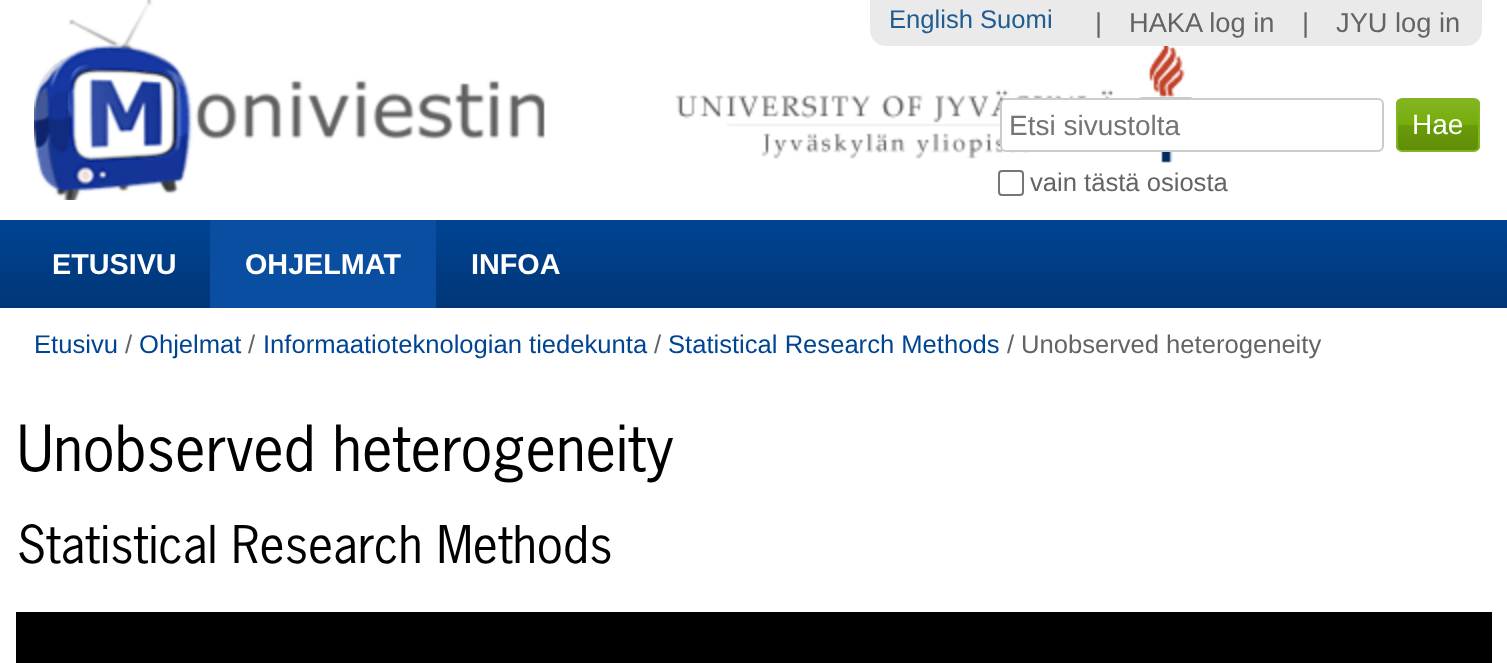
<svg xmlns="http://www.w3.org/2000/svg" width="1507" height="663">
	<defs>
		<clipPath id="clip1"><rect x="1396" y="98" width="84" height="54" rx="6" /></clipPath>
		<linearGradient id="g1" gradientUnits="userSpaceOnUse" x1="1438" y1="100" x2="1438" y2="150"><stop offset="0" stop-color="#83B522" /><stop offset="0.49" stop-color="#75AD0A" /><stop offset="0.5" stop-color="#6A9C09" /><stop offset="1" stop-color="#608D08" /></linearGradient>
		<linearGradient id="g2" gradientUnits="userSpaceOnUse" x1="754" y1="220" x2="754" y2="308"><stop offset="0" stop-color="#004494" /><stop offset="1" stop-color="#003676" /></linearGradient>
	</defs>
	<rect width="100%" height="100%" fill="#FFFFFF" />
	<image x="34" y="0" width="1159" height="200" href="assets/img1.png" />
	<path d="M870 0H1482V30C1482 39 1475 46 1466 46H886C877 46 870 39 870 30Z" fill="#EAEAEA" />
	<text x="889" y="28" font-family="Liberation Sans" font-size="25.6" fill="#205C90">English Suomi</text>
	<g font-family="Liberation Sans" font-size="27.25" fill="#646464">
		<text x="1095" y="32">|</text>
		<text x="1129" y="32">HAKA log in</text>
		<text x="1302" y="32">|</text>
		<text x="1336" y="32">JYU log in</text>
	</g>
	<text x="34" y="353" font-family="Liberation Sans" font-size="25.6" fill="#004494">Etusivu</text>
	<text x="125" y="353" font-family="Liberation Sans" font-size="25.6" fill="#646464">/</text>
	<text x="139" y="353" font-family="Liberation Sans" font-size="25.6" fill="#004494">Ohjelmat</text>
	<text x="248" y="353" font-family="Liberation Sans" font-size="25.6" fill="#646464">/</text>
	<text x="263" y="353" font-family="Liberation Sans" font-size="25.6" fill="#004494">Informaatioteknologian tiedekunta</text>
	<text x="654" y="353" font-family="Liberation Sans" font-size="25.6" fill="#646464">/</text>
	<text x="668" y="353" font-family="Liberation Sans" font-size="25.6" fill="#004494">Statistical Research Methods</text>
	<g font-family="Liberation Sans" font-size="25.6" fill="#646464">
		<text x="1007" y="353">/</text>
		<text x="1021" y="353">Unobserved heterogeneity</text>
	</g>
	<text x="17" y="471" font-family="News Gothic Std" font-size="59.75" fill="#000000">Unobserved heterogeneity</text>
	<text x="17" y="563" font-family="News Gothic Std" font-size="49" fill="#000000">Statistical Research Methods</text>
	<rect x="16" y="612" width="1476" height="51" fill="#000000" />
	<rect x="1001" y="99" width="382" height="52" rx="5" fill="#FFFFFF" stroke="#CCCCCC" stroke-width="2" />
	<text x="1009" y="135" font-family="Liberation Sans" font-size="28" fill="#757575">Etsi sivustolta</text>
	<g clip-path="url(#clip1)">
		<rect x="1396" y="100" width="84" height="50" fill="url(#g1)" />
	</g>
	<rect x="1397" y="99" width="82" height="52" rx="5" fill="none" stroke="#83B522" stroke-width="2" />
	<text x="1412" y="134" font-family="Liberation Sans" font-size="28" fill="#FFFFFF">Hae</text>
	<rect x="999" y="171" width="24" height="24" rx="3" fill="none" stroke="#767676" stroke-width="2" />
	<text x="1030" y="191" font-family="Liberation Sans" font-size="25.6" fill="#646464">vain tästä osiosta</text>
	<rect x="0" y="220" width="1507" height="88" fill="url(#g2)" />
	<text x="52" y="274" font-family="Liberation Sans" font-size="28.75" font-weight="700" fill="#FFFFFF">ETUSIVU</text>
	<rect x="210" y="220" width="226" height="88" fill="#094EA1" />
	<g font-family="Liberation Sans" font-size="28.75" font-weight="700" fill="#FFFFFF">
		<text x="245" y="274">OHJELMAT</text>
		<text x="471" y="274">INFOA</text>
	</g>
</svg>
